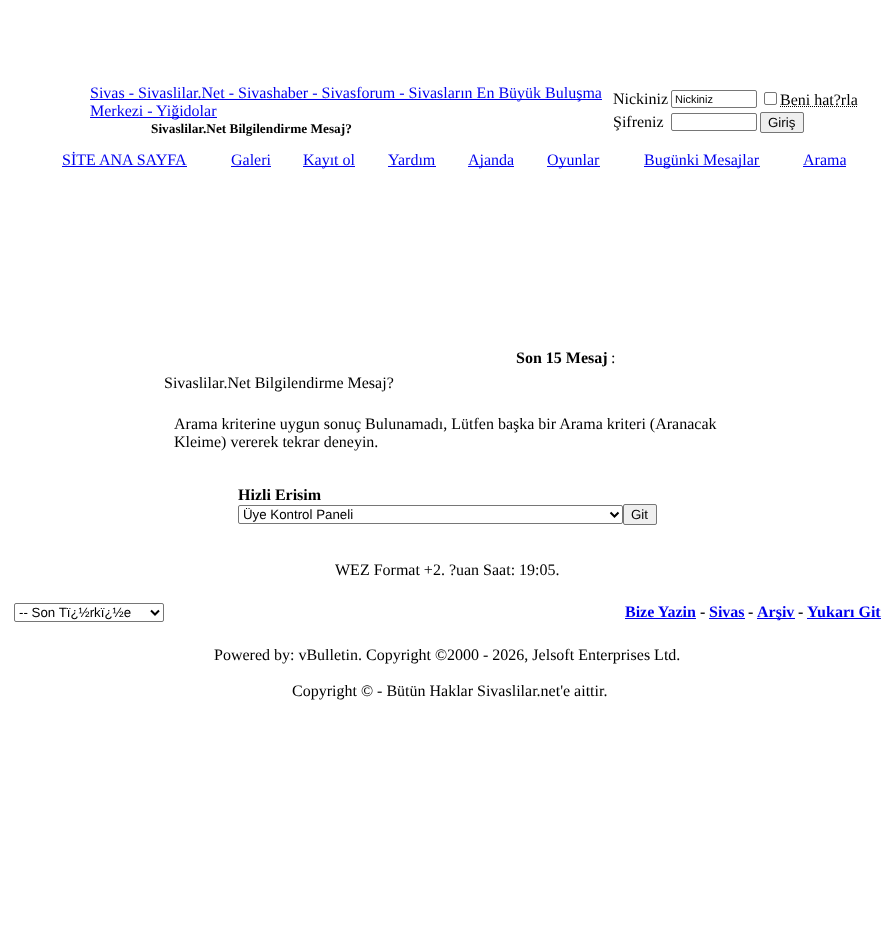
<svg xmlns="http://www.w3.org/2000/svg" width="895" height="930">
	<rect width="100%" height="100%" fill="#FFFFFF" />
	<rect x="90" y="99" width="512" height="1" fill="#0000EE" />
	<text x="90" y="98" font-family="Liberation Serif" font-size="16" fill="#0000EE">Sivas - Sivaslilar.Net - Sivashaber - Sivasforum - Sivasların En Büyük Buluşma</text>
	<rect x="90" y="117" width="127" height="1" fill="#0000EE" />
	<text x="90" y="116" font-family="Liberation Serif" font-size="16" fill="#0000EE">Merkezi - Yiğidolar</text>
	<text x="151" y="133" font-family="Liberation Serif" font-size="13.3" font-weight="700" fill="#000000">Sivaslilar.Net Bilgilendirme Mesaj?</text>
	<text x="613" y="104" font-family="Liberation Serif" font-size="16" fill="#000000">Nickiniz</text>
	<rect x="671.5" y="90.5" width="85" height="17" rx="1.5" fill="none" stroke="#767676" />
	<text x="675" y="103" font-family="Liberation Sans" font-size="11" fill="#000000">Nickiniz</text>
	<rect x="764.5" y="92.5" width="12" height="12" rx="1.5" fill="none" stroke="#767676" />
	<text x="780" y="105" font-family="Liberation Serif" font-size="16" fill="#000000">Beni hat?rla</text>
	<path d="M780 106.5H858" fill="none" stroke="#000000" stroke-dasharray="1 1" />
	<text x="613" y="127" font-family="Liberation Serif" font-size="16" fill="#000000">Şifreniz</text>
	<rect x="671.5" y="113.5" width="85" height="17" rx="1.5" fill="none" stroke="#767676" />
	<rect x="760.5" y="112.5" width="43" height="20" rx="1.5" fill="#EFEFEF" stroke="#767676" />
	<text x="768" y="127" font-family="Liberation Sans" font-size="13.3" fill="#000000">Giriş</text>
	<text x="62" y="165" font-family="Liberation Serif" font-size="16" fill="#0000EE">SİTE ANA SAYFA</text>
	<rect x="62" y="166" width="125" height="1" fill="#0000EE" />
	<text x="231" y="165" font-family="Liberation Serif" font-size="16" fill="#0000EE">Galeri</text>
	<rect x="231" y="166" width="40" height="1" fill="#0000EE" />
	<rect x="303" y="166" width="52" height="1" fill="#0000EE" />
	<g font-family="Liberation Serif" font-size="16" fill="#0000EE">
		<text x="303" y="165">Kayıt ol</text>
		<text x="388" y="165">Yardım</text>
	</g>
	<rect x="388" y="166" width="48" height="1" fill="#0000EE" />
	<rect x="468" y="166" width="46" height="1" fill="#0000EE" />
	<text x="468" y="165" font-family="Liberation Serif" font-size="16" fill="#0000EE">Ajanda</text>
	<rect x="547" y="166" width="53" height="1" fill="#0000EE" />
	<text x="547" y="165" font-family="Liberation Serif" font-size="16" fill="#0000EE">Oyunlar</text>
	<rect x="644" y="166" width="116" height="1" fill="#0000EE" />
	<g font-family="Liberation Serif" font-size="16" fill="#0000EE">
		<text x="644" y="165">Bugünki Mesajlar</text>
		<text x="803" y="165">Arama</text>
	</g>
	<rect x="803" y="166" width="43" height="1" fill="#0000EE" />
	<text x="516" y="363" font-family="Liberation Serif" font-size="16" font-weight="700" fill="#000000">Son 15 Mesaj</text>
	<g font-family="Liberation Serif" font-size="16" fill="#000000">
		<text x="611" y="363">:</text>
		<text x="164" y="388">Sivaslilar.Net Bilgilendirme Mesaj?</text>
		<text x="174" y="429">Arama kriterine uygun sonuç Bulunamadı, Lütfen başka bir Arama kriteri (Aranacak</text>
		<text x="174" y="447">Kleime) vererek tekrar deneyin.</text>
	</g>
	<text x="238" y="500" font-family="Liberation Serif" font-size="16" font-weight="700" fill="#000000">Hizli Erisim</text>
	<rect x="238.5" y="505.5" width="384" height="18" rx="1.5" fill="none" stroke="#767676" />
	<path d="M610.5 512.5L614.5 516.5L618.5 512.5" fill="none" stroke="#000000" stroke-width="2" />
	<text x="243" y="519" font-family="Liberation Sans" font-size="13.3" fill="#000000">Üye Kontrol Paneli</text>
	<rect x="623.5" y="504.5" width="33" height="20" rx="1.5" fill="#EFEFEF" stroke="#767676" />
	<text x="631" y="519" font-family="Liberation Sans" font-size="13.3" fill="#000000">Git</text>
	<text x="335" y="575" font-family="Liberation Serif" font-size="16" fill="#000000">WEZ Format +2. ?uan Saat: 19:05.</text>
	<rect x="14.5" y="603.5" width="149" height="18" rx="1.5" fill="none" stroke="#767676" />
	<path d="M151 610.5L155 614.5L159 610.5" fill="none" stroke="#000000" stroke-width="2" />
	<text x="19" y="617" font-family="Liberation Sans" font-size="13.3" fill="#000000">-- Son Tï¿½rkï¿½e</text>
	<text x="625" y="617" font-family="Liberation Serif" font-size="16" font-weight="700" fill="#0000EE">Bize Yazin</text>
	<rect x="625" y="618" width="71" height="1" fill="#0000EE" />
	<text x="700" y="617" font-family="Liberation Serif" font-size="16" font-weight="700" fill="#000000">-</text>
	<text x="709" y="617" font-family="Liberation Serif" font-size="16" font-weight="700" fill="#0000EE">Sivas</text>
	<rect x="709" y="618" width="36" height="1" fill="#0000EE" />
	<text x="748" y="617" font-family="Liberation Serif" font-size="16" font-weight="700" fill="#000000">-</text>
	<rect x="757" y="618" width="38" height="1" fill="#0000EE" />
	<text x="757" y="617" font-family="Liberation Serif" font-size="16" font-weight="700" fill="#0000EE">Arşiv</text>
	<text x="798" y="617" font-family="Liberation Serif" font-size="16" font-weight="700" fill="#000000">-</text>
	<rect x="807" y="618" width="74" height="1" fill="#0000EE" />
	<text x="807" y="617" font-family="Liberation Serif" font-size="16" font-weight="700" fill="#0000EE">Yukarı Git</text>
	<g font-family="Liberation Serif" font-size="16" fill="#000000">
		<text x="214" y="660">Powered by: vBulletin. Copyright ©2000 - 2026, Jelsoft Enterprises Ltd.</text>
		<text x="292" y="696">Copyright © - Bütün Haklar Sivaslilar.net'e aittir.</text>
	</g>
</svg>
